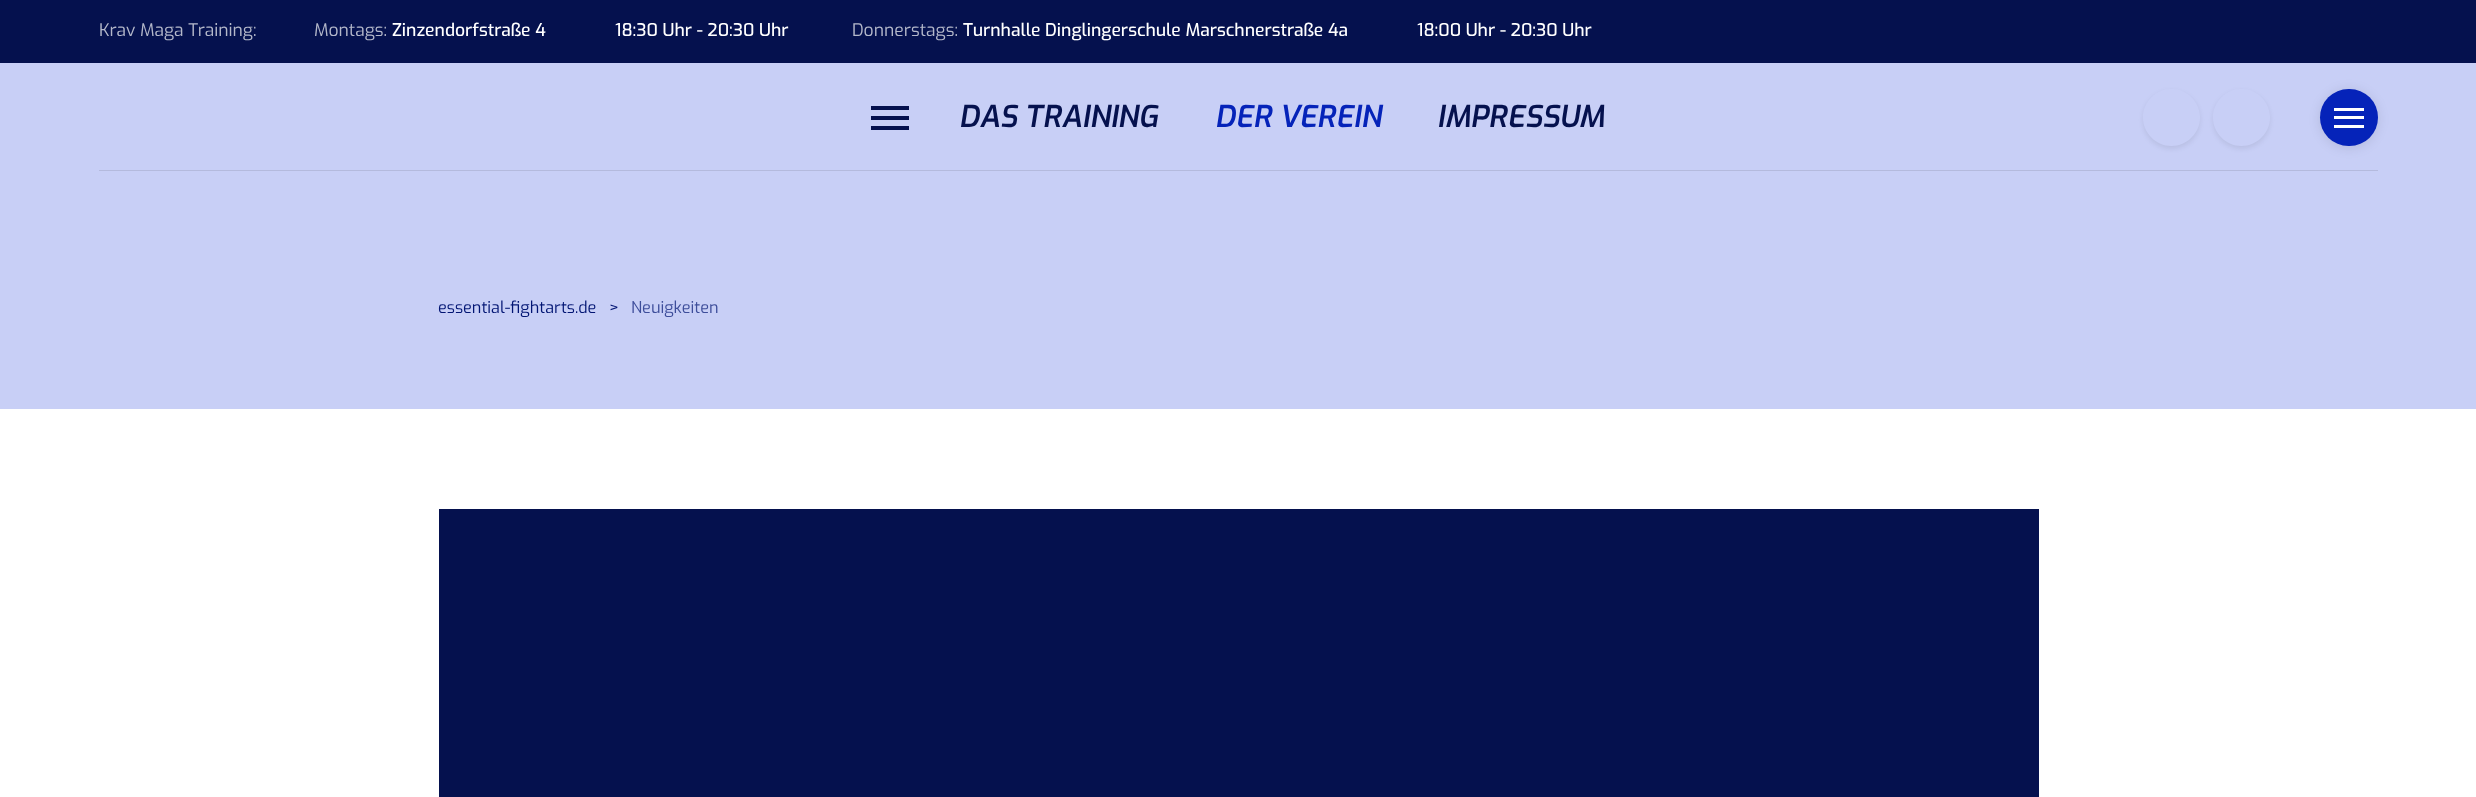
<svg xmlns="http://www.w3.org/2000/svg" width="2476" height="797">
	<defs>
		<clipPath id="clip1"><path d="M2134 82H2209V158H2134ZM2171.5 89C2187 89 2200 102 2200 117.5C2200 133 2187 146 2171.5 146C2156 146 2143 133 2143 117.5C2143 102 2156 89 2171.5 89Z" clip-rule="evenodd" /></clipPath>
		<clipPath id="clip2"><path d="M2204 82H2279V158H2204ZM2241.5 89C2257 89 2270 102 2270 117.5C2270 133 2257 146 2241.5 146C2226 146 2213 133 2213 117.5C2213 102 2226 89 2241.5 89Z" clip-rule="evenodd" /></clipPath>
	</defs>
	<rect width="100%" height="100%" fill="#FFFFFF" />
	<rect x="0" y="0" width="2476" height="63" fill="#05114E" />
	<g font-family="Exo" font-size="17.5" fill="#B4B8CA">
		<text x="99" y="36">Krav Maga Training:</text>
		<text x="314" y="36">Montags:</text>
	</g>
	<g font-family="Exo" font-size="17.5" font-weight="500" fill="#FFFFFF">
		<text x="392" y="36">Zinzendorfstraße 4</text>
		<text x="615" y="36">18:30 Uhr - 20:30 Uhr</text>
	</g>
	<text x="852" y="36" font-family="Exo" font-size="17.5" fill="#B4B8CA">Donnerstags:</text>
	<g font-family="Exo" font-size="17.5" font-weight="500" fill="#FFFFFF">
		<text x="963" y="36">Turnhalle Dinglingerschule Marschnerstraße 4a</text>
		<text x="1417" y="36">18:00 Uhr - 20:30 Uhr</text>
	</g>
	<rect x="0" y="63" width="2476" height="346" fill="#C8CFF6" />
	<rect x="871" y="106" width="38" height="4" fill="#05114E" />
	<rect x="871" y="126" width="38" height="4" fill="#05114E" />
	<rect x="871" y="116" width="38" height="4" fill="#05114E" />
	<text x="959" y="127" font-family="Exo" font-size="30" font-weight="600" font-style="italic" fill="#05114E">DAS TRAINING</text>
	<text x="1215" y="127" font-family="Exo" font-size="30" font-weight="600" font-style="italic" fill="#0523B9">DER VEREIN</text>
	<text x="1437" y="127" font-family="Exo" font-size="30" font-weight="600" font-style="italic" fill="#05114E">IMPRESSUM</text>
	<g clip-path="url(#clip1)">
		<rect x="2143" y="91" width="57" height="58" rx="28.5" fill="#000000" fill-opacity="0.07" filter="blur(2.5px)" />
	</g>
	<g clip-path="url(#clip2)">
		<rect x="2213" y="91" width="57" height="58" rx="28.5" fill="#000000" fill-opacity="0.07" filter="blur(2.5px)" />
	</g>
	<rect x="2320" y="90" width="58" height="58" rx="29" fill="#000000" fill-opacity="0.1" filter="blur(6px)" />
	<rect x="2320" y="89" width="58" height="57" rx="28.5" fill="#0523B9" />
	<rect x="2334" y="108" width="30" height="3" fill="#FFFFFF" />
	<rect x="2334" y="116" width="30" height="3" fill="#FFFFFF" />
	<rect x="2334" y="125" width="30" height="3" fill="#FFFFFF" />
	<rect x="99" y="170" width="2279" height="1" fill="#B4BADD" />
	<g font-family="Exo" font-size="16.25" fill="#021573">
		<text x="438" y="313">essential-fightarts.de</text>
		<text x="609" y="313">&gt;</text>
	</g>
	<text x="631" y="313" font-family="Exo" font-size="16.25" fill="#3D4D9A">Neuigkeiten</text>
	<rect x="439" y="509" width="1600" height="288" fill="#05114E" />
</svg>
